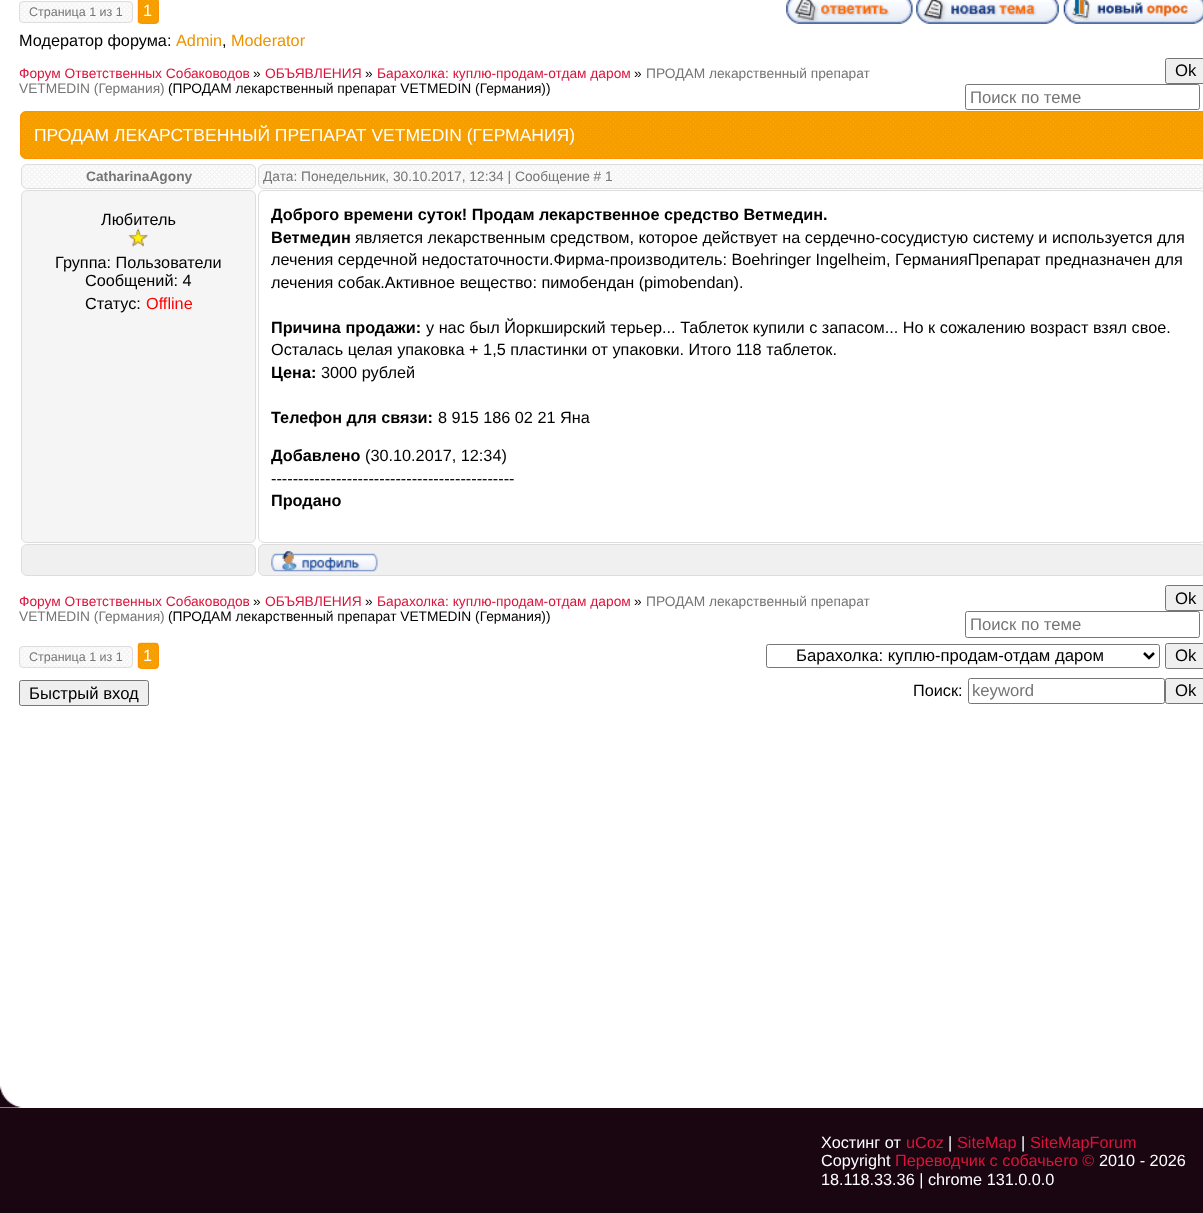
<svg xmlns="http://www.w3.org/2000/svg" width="1203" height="1213">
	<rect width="100%" height="100%" fill="#190611" />
	<rect x="0" y="0" width="1203" height="1108" fill="#FFFFFF" />
	<image x="0" y="1085" width="1203" height="23" href="assets/img1.png" />
	<image x="19" y="1" width="113" height="21" href="assets/img2.png" />
	<rect x="19.5" y="1.5" width="113" height="21" rx="3.5" fill="none" stroke="#DDDDDD" />
	<text x="29" y="16" font-family="Liberation Sans" font-size="12.5" fill="#757575">Страница 1 из 1</text>
	<image x="137" y="0" width="22" height="24" href="assets/img3.png" />
	<rect x="138.5" y="-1.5" width="20" height="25" rx="3.5" fill="none" stroke="#FF9102" />
	<text x="143" y="16" font-family="Liberation Sans" font-size="16.25" fill="#FFFFFF">1</text>
	<image x="786" y="0" width="127" height="24" href="assets/img4.png" />
	<image x="916" y="0" width="143" height="24" href="assets/img5.png" />
	<image x="1063" y="0" width="140" height="24" href="assets/img6.png" />
	<text x="19" y="46" font-family="Liberation Sans" font-size="16.25" fill="#000000">Модератор форума:</text>
	<text x="176" y="46" font-family="Liberation Sans" font-size="16.25" fill="#EC9300">Admin</text>
	<text x="222" y="46" font-family="Liberation Sans" font-size="16.25" fill="#000000">,</text>
	<text x="231" y="46" font-family="Liberation Sans" font-size="16.25" fill="#EC9300">Moderator</text>
	<text x="19" y="78" font-family="Liberation Sans" font-size="13.75" fill="#DC143C">Форум Ответственных Собаководов</text>
	<text x="253" y="78" font-family="Liberation Sans" font-size="13.75" fill="#000000">»</text>
	<text x="265" y="78" font-family="Liberation Sans" font-size="13.75" fill="#DC143C">ОБЪЯВЛЕНИЯ</text>
	<text x="365" y="78" font-family="Liberation Sans" font-size="13.75" fill="#000000">»</text>
	<text x="377" y="78" font-family="Liberation Sans" font-size="13.75" fill="#DC143C">Барахолка: куплю-продам-отдам даром</text>
	<text x="634" y="78" font-family="Liberation Sans" font-size="13.75" fill="#000000">»</text>
	<g font-family="Liberation Sans" font-size="13.75" fill="#757575">
		<text x="646" y="78">ПРОДАМ лекарственный препарат</text>
		<text x="19" y="93">VETMEDIN (Германия)</text>
	</g>
	<text x="168" y="93" font-family="Liberation Sans" font-size="13.75" fill="#000000">(ПРОДАМ лекарственный препарат VETMEDIN (Германия))</text>
	<rect x="1165.5" y="58.5" width="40" height="25" rx="2" fill="#EFEFEF" stroke="#767676" />
	<text x="1175" y="76" font-family="Liberation Sans" font-size="16.7" fill="#000000">Ok</text>
	<rect x="965.5" y="84.5" width="234" height="25" rx="2" fill="none" stroke="#767676" />
	<text x="970" y="103" font-family="Liberation Sans" font-size="16.7" fill="#757575">Поиск по теме</text>
	<image x="20" y="111" width="1183" height="48" href="assets/img7.png" />
	<rect x="20.5" y="111.5" width="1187" height="47" rx="5.5" fill="none" stroke="#FF9102" />
	<text x="34" y="141" font-family="Liberation Sans" font-size="17.5" fill="#FFFFFF">ПРОДАМ ЛЕКАРСТВЕННЫЙ ПРЕПАРАТ VETMEDIN (ГЕРМАНИЯ)</text>
	<image x="21" y="164" width="235" height="25" href="assets/img8.png" />
	<rect x="21.5" y="164.5" width="234" height="24" rx="5.5" fill="none" stroke="#DDDDDD" />
	<text x="86" y="181" font-family="Liberation Sans" font-size="13.75" font-weight="700" fill="#757575">CatharinaAgony</text>
	<image x="258" y="164" width="945" height="25" href="assets/img9.png" />
	<rect x="258.5" y="164.5" width="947" height="24" rx="5.5" fill="none" stroke="#DDDDDD" />
	<text x="263" y="181" font-family="Liberation Sans" font-size="13.75" fill="#757575">Дата: Понедельник, 30.10.2017, 12:34 | Сообщение # 1</text>
	<rect x="21.5" y="190.5" width="234" height="352" rx="5.5" fill="#F5F5F5" stroke="#DDDDDD" />
	<text x="101" y="225" font-family="Liberation Sans" font-size="16.25" fill="#000000">Любитель</text>
	<image x="128" y="228" width="20" height="19" href="assets/img10.png" />
	<g font-family="Liberation Sans" font-size="16.25" fill="#000000">
		<text x="55" y="268">Группа: Пользователи</text>
		<text x="85" y="286">Сообщений: 4</text>
		<text x="85" y="309">Статус:</text>
	</g>
	<text x="146" y="309" font-family="Liberation Sans" font-size="16.25" fill="#FF0000">Offline</text>
	<rect x="258.5" y="190.5" width="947" height="352" rx="5.5" fill="none" stroke="#DDDDDD" />
	<g font-family="Liberation Sans" font-size="16.25" font-weight="700" fill="#000000">
		<text x="271" y="220">Доброго времени суток! Продам лекарственное средство Ветмедин.</text>
		<text x="271" y="243">Ветмедин</text>
	</g>
	<g font-family="Liberation Sans" font-size="16.25" fill="#000000">
		<text x="355" y="243">является лекарственным средством, которое действует на сердечно-сосудистую систему и используется для</text>
		<text x="271" y="265">лечения сердечной недостаточности.Фирма-производитель: Boehringer Ingelheim, ГерманияПрепарат предназначен для</text>
		<text x="271" y="288">лечения собак.Активное вещество: пимобендан (pimobendan).</text>
	</g>
	<text x="271" y="333" font-family="Liberation Sans" font-size="16.25" font-weight="700" fill="#000000">Причина продажи:</text>
	<g font-family="Liberation Sans" font-size="16.25" fill="#000000">
		<text x="426" y="333">у нас был Йоркширский терьер... Таблеток купили с запасом... Но к сожалению возраст взял свое.</text>
		<text x="271" y="355">Осталась целая упаковка + 1,5 пластинки от упаковки. Итого 118 таблеток.</text>
	</g>
	<text x="271" y="378" font-family="Liberation Sans" font-size="16.25" font-weight="700" fill="#000000">Цена:</text>
	<text x="321" y="378" font-family="Liberation Sans" font-size="16.25" fill="#000000">3000 рублей</text>
	<text x="271" y="423" font-family="Liberation Sans" font-size="16.25" font-weight="700" fill="#000000">Телефон для связи:</text>
	<text x="438" y="423" font-family="Liberation Sans" font-size="16.25" fill="#000000">8 915 186 02 21 Яна</text>
	<text x="271" y="461" font-family="Liberation Sans" font-size="16.25" font-weight="700" fill="#000000">Добавлено</text>
	<g font-family="Liberation Sans" font-size="16.25" fill="#000000">
		<text x="365" y="461">(30.10.2017, 12:34)</text>
		<text x="271" y="484">---------------------------------------------</text>
	</g>
	<text x="271" y="506" font-family="Liberation Sans" font-size="16.25" font-weight="700" fill="#000000">Продано</text>
	<rect x="21.5" y="544.5" width="234" height="31" rx="5.5" fill="#F0F0F0" stroke="#DDDDDD" />
	<rect x="258.5" y="544.5" width="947" height="31" rx="5.5" fill="#F0F0F0" stroke="#DDDDDD" />
	<image x="271" y="551" width="107" height="21" href="assets/img11.png" />
	<text x="19" y="606" font-family="Liberation Sans" font-size="13.75" fill="#DC143C">Форум Ответственных Собаководов</text>
	<text x="253" y="606" font-family="Liberation Sans" font-size="13.75" fill="#000000">»</text>
	<text x="265" y="606" font-family="Liberation Sans" font-size="13.75" fill="#DC143C">ОБЪЯВЛЕНИЯ</text>
	<text x="365" y="606" font-family="Liberation Sans" font-size="13.75" fill="#000000">»</text>
	<text x="377" y="606" font-family="Liberation Sans" font-size="13.75" fill="#DC143C">Барахолка: куплю-продам-отдам даром</text>
	<text x="634" y="606" font-family="Liberation Sans" font-size="13.75" fill="#000000">»</text>
	<g font-family="Liberation Sans" font-size="13.75" fill="#757575">
		<text x="646" y="606">ПРОДАМ лекарственный препарат</text>
		<text x="19" y="621">VETMEDIN (Германия)</text>
	</g>
	<text x="168" y="621" font-family="Liberation Sans" font-size="13.75" fill="#000000">(ПРОДАМ лекарственный препарат VETMEDIN (Германия))</text>
	<rect x="1165.5" y="585.5" width="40" height="25" rx="2" fill="#EFEFEF" stroke="#767676" />
	<text x="1175" y="604" font-family="Liberation Sans" font-size="16.7" fill="#000000">Ok</text>
	<rect x="965.5" y="611.5" width="234" height="26" rx="2" fill="none" stroke="#767676" />
	<text x="970" y="630" font-family="Liberation Sans" font-size="16.7" fill="#757575">Поиск по теме</text>
	<image x="19" y="646" width="113" height="21" href="assets/img2.png" />
	<rect x="19.5" y="646.5" width="113" height="21" rx="3.5" fill="none" stroke="#DDDDDD" />
	<text x="29" y="661" font-family="Liberation Sans" font-size="12.5" fill="#757575">Страница 1 из 1</text>
	<image x="137" y="642" width="22" height="27" href="assets/img12.png" />
	<rect x="138.5" y="643.5" width="20" height="25" rx="3.5" fill="none" stroke="#FF9102" />
	<text x="143" y="661" font-family="Liberation Sans" font-size="16.25" fill="#FFFFFF">1</text>
	<rect x="766.5" y="644.5" width="393" height="23" rx="2" fill="none" stroke="#767676" />
	<path d="M1144 653L1149 658L1154 653" fill="none" stroke="#000000" stroke-width="2.5" />
	<text x="796" y="661" font-family="Liberation Sans" font-size="16.7" fill="#000000">Барахолка: куплю-продам-отдам даром</text>
	<rect x="1165.5" y="643.5" width="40" height="25" rx="2" fill="#EFEFEF" stroke="#767676" />
	<text x="1175" y="661" font-family="Liberation Sans" font-size="16.7" fill="#000000">Ok</text>
	<rect x="19.5" y="680.5" width="129" height="25" rx="2" fill="#EFEFEF" stroke="#767676" />
	<text x="29" y="699" font-family="Liberation Sans" font-size="16.7" fill="#000000">Быстрый вход</text>
	<text x="913" y="696" font-family="Liberation Sans" font-size="16.25" fill="#000000">Поиск:</text>
	<rect x="968.5" y="678.5" width="196" height="25" rx="2" fill="none" stroke="#767676" />
	<text x="972" y="696" font-family="Liberation Sans" font-size="16.7" fill="#757575">keyword</text>
	<rect x="1165.5" y="678.5" width="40" height="25" rx="2" fill="#EFEFEF" stroke="#767676" />
	<text x="1175" y="696" font-family="Liberation Sans" font-size="16.7" fill="#000000">Ok</text>
	<text x="821" y="1148" font-family="Liberation Sans" font-size="16.25" fill="#FFFFFF">Хостинг от</text>
	<text x="906" y="1148" font-family="Liberation Sans" font-size="16.25" fill="#DC143C">uCoz</text>
	<text x="948" y="1148" font-family="Liberation Sans" font-size="16.25" fill="#FFFFFF">|</text>
	<text x="957" y="1148" font-family="Liberation Sans" font-size="16.25" fill="#DC143C">SiteMap</text>
	<text x="1021" y="1148" font-family="Liberation Sans" font-size="16.25" fill="#FFFFFF">|</text>
	<text x="1030" y="1148" font-family="Liberation Sans" font-size="16.25" fill="#DC143C">SiteMapForum</text>
	<text x="821" y="1166" font-family="Liberation Sans" font-size="16.25" fill="#FFFFFF">Copyright</text>
	<text x="895" y="1166" font-family="Liberation Sans" font-size="16.25" fill="#DC143C">Переводчик с собачьего ©</text>
	<g font-family="Liberation Sans" font-size="16.25" fill="#FFFFFF">
		<text x="1099" y="1166">2010 - 2026</text>
		<text x="821" y="1185">18.118.33.36 | chrome 131.0.0.0</text>
	</g>
</svg>
